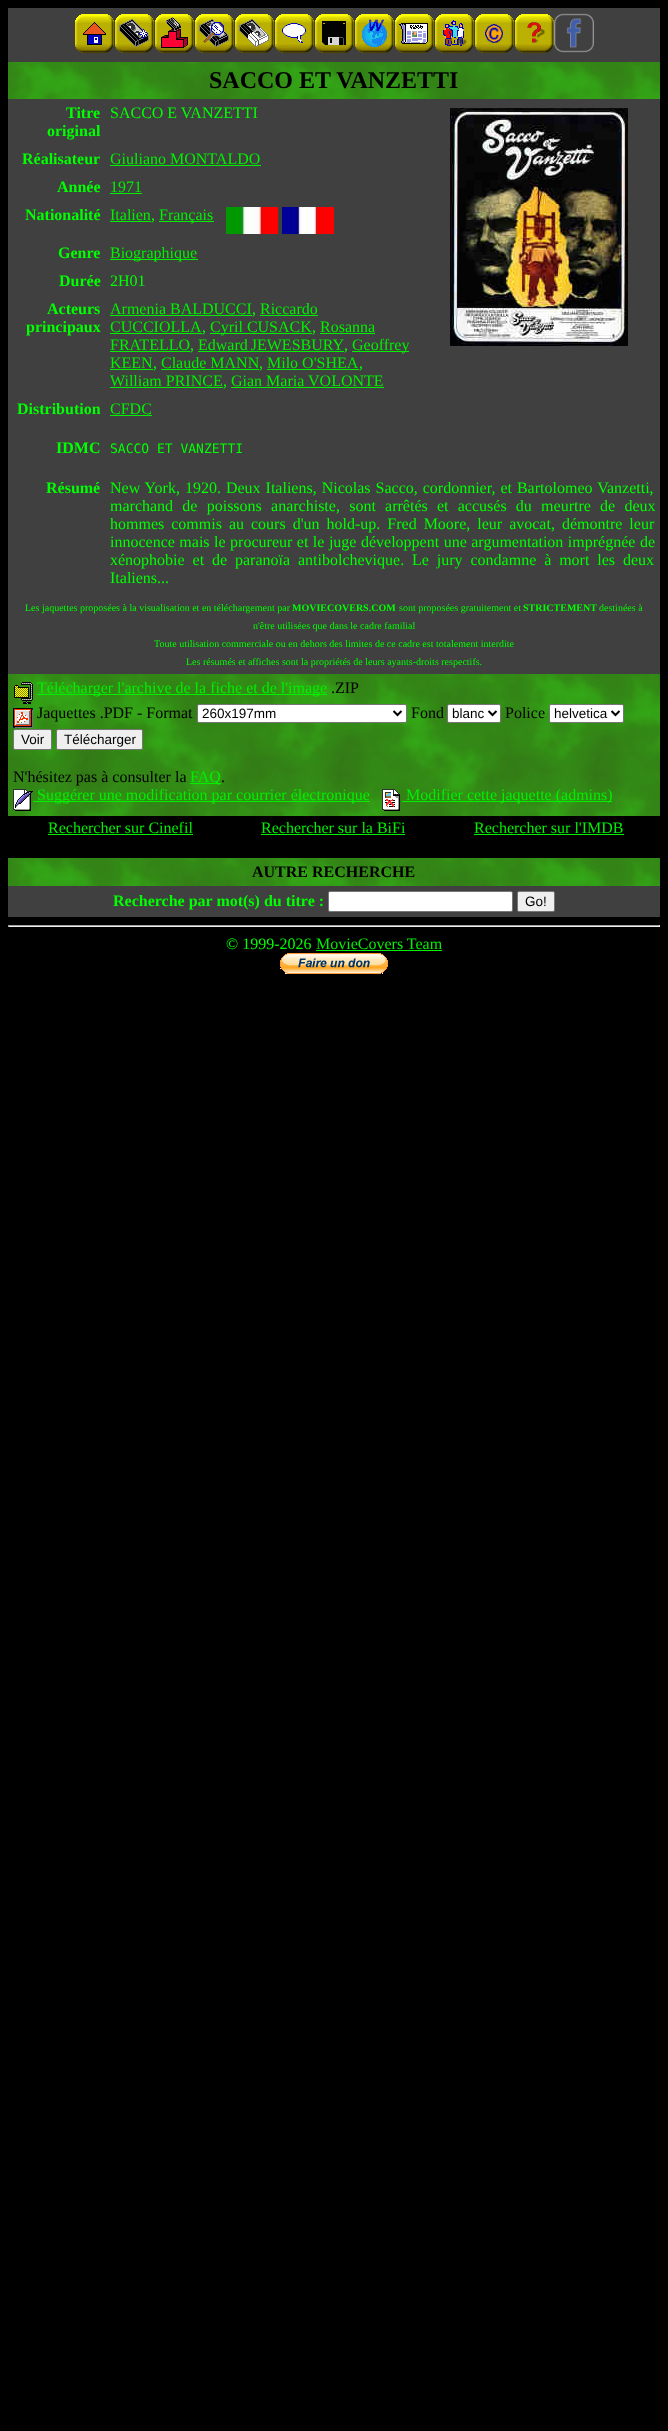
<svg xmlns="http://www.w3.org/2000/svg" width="668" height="2431">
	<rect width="100%" height="100%" fill="#000000" />
	<rect x="8" y="8" width="652" height="54" fill="#404040" />
	<image x="75" y="14" width="39" height="39" href="assets/img1.png" />
	<image x="115" y="14" width="39" height="39" href="assets/img2.png" />
	<image x="155" y="14" width="39" height="39" href="assets/img3.png" />
	<image x="195" y="14" width="39" height="39" href="assets/img4.png" />
	<image x="235" y="14" width="39" height="39" href="assets/img5.png" />
	<image x="275" y="14" width="39" height="39" href="assets/img6.png" />
	<image x="315" y="14" width="39" height="39" href="assets/img7.png" />
	<image x="355" y="14" width="39" height="39" href="assets/img8.png" />
	<image x="395" y="14" width="39" height="39" href="assets/img9.png" />
	<image x="435" y="14" width="39" height="39" href="assets/img10.png" />
	<image x="475" y="14" width="39" height="39" href="assets/img11.png" />
	<image x="515" y="14" width="39" height="39" href="assets/img12.png" />
	<image x="554" y="13" width="40" height="40" href="assets/img13.png" />
	<rect x="8" y="99" width="652" height="575" fill="#404040" />
	<image x="8" y="62" width="652" height="37" href="assets/img14.png" />
	<text x="209" y="88" font-family="Liberation Serif" font-size="24" font-weight="700" fill="#000000">SACCO ET VANZETTI</text>
	<g font-family="Liberation Serif" font-size="16" font-weight="700" fill="#00FF00">
		<text x="66" y="118">Titre</text>
		<text x="47" y="136">original</text>
	</g>
	<text x="110" y="118" font-family="Liberation Serif" font-size="16" fill="#00FF00">SACCO E VANZETTI</text>
	<image x="450" y="108" width="178" height="238" href="assets/img15.png" />
	<text x="22" y="164" font-family="Liberation Serif" font-size="16" font-weight="700" fill="#00FF00">Réalisateur</text>
	<text x="110" y="164" font-family="Liberation Serif" font-size="16" fill="#00F000">Giuliano MONTALDO</text>
	<rect x="110" y="165" width="151" height="1" fill="#00F000" />
	<text x="57" y="192" font-family="Liberation Serif" font-size="16" font-weight="700" fill="#00FF00">Année</text>
	<text x="110" y="192" font-family="Liberation Serif" font-size="16" fill="#00F000">1971</text>
	<rect x="110" y="193" width="32" height="1" fill="#00F000" />
	<text x="25" y="220" font-family="Liberation Serif" font-size="16" font-weight="700" fill="#00FF00">Nationalité</text>
	<text x="110" y="220" font-family="Liberation Serif" font-size="16" fill="#00F000">Italien</text>
	<rect x="110" y="221" width="41" height="1" fill="#00F000" />
	<text x="151" y="220" font-family="Liberation Serif" font-size="16" fill="#00FF00">,</text>
	<rect x="159" y="221" width="55" height="1" fill="#00F000" />
	<text x="159" y="220" font-family="Liberation Serif" font-size="16" fill="#00F000">Français</text>
	<image x="226" y="207" width="52" height="27" href="assets/img16.png" />
	<image x="282" y="207" width="52" height="27" href="assets/img17.png" />
	<text x="58" y="258" font-family="Liberation Serif" font-size="16" font-weight="700" fill="#00FF00">Genre</text>
	<rect x="110" y="259" width="88" height="1" fill="#00F000" />
	<text x="110" y="258" font-family="Liberation Serif" font-size="16" fill="#00F000">Biographique</text>
	<text x="59" y="286" font-family="Liberation Serif" font-size="16" font-weight="700" fill="#00FF00">Durée</text>
	<text x="110" y="286" font-family="Liberation Serif" font-size="16" fill="#00FF00">2H01</text>
	<g font-family="Liberation Serif" font-size="16" font-weight="700" fill="#00FF00">
		<text x="47" y="314">Acteurs</text>
		<text x="26" y="332">principaux</text>
	</g>
	<text x="110" y="314" font-family="Liberation Serif" font-size="16" fill="#00F000">Armenia BALDUCCI</text>
	<rect x="110" y="315" width="142" height="1" fill="#00F000" />
	<text x="252" y="314" font-family="Liberation Serif" font-size="16" fill="#00FF00">,</text>
	<text x="260" y="314" font-family="Liberation Serif" font-size="16" fill="#00F000">Riccardo</text>
	<rect x="260" y="315" width="58" height="1" fill="#00F000" />
	<text x="110" y="332" font-family="Liberation Serif" font-size="16" fill="#00F000">CUCCIOLLA</text>
	<rect x="110" y="333" width="92" height="1" fill="#00F000" />
	<text x="202" y="332" font-family="Liberation Serif" font-size="16" fill="#00FF00">,</text>
	<rect x="210" y="333" width="102" height="1" fill="#00F000" />
	<text x="210" y="332" font-family="Liberation Serif" font-size="16" fill="#00F000">Cyril CUSACK</text>
	<text x="312" y="332" font-family="Liberation Serif" font-size="16" fill="#00FF00">,</text>
	<text x="320" y="332" font-family="Liberation Serif" font-size="16" fill="#00F000">Rosanna</text>
	<rect x="320" y="333" width="55" height="1" fill="#00F000" />
	<text x="110" y="350" font-family="Liberation Serif" font-size="16" fill="#00F000">FRATELLO</text>
	<rect x="110" y="351" width="80" height="1" fill="#00F000" />
	<text x="190" y="350" font-family="Liberation Serif" font-size="16" fill="#00FF00">,</text>
	<text x="198" y="350" word-spacing="-1" font-family="Liberation Serif" font-size="16" fill="#00F000">Edward JEWESBURY</text>
	<rect x="198" y="351" width="146" height="1" fill="#00F000" />
	<text x="344" y="350" font-family="Liberation Serif" font-size="16" fill="#00FF00">,</text>
	<rect x="352" y="351" width="57" height="1" fill="#00F000" />
	<g font-family="Liberation Serif" font-size="16" fill="#00F000">
		<text x="352" y="350">Geoffrey</text>
		<text x="110" y="368">KEEN</text>
	</g>
	<rect x="110" y="369" width="43" height="1" fill="#00F000" />
	<text x="161" y="368" font-family="Liberation Serif" font-size="16" fill="#00F000">Claude MANN</text>
	<rect x="161" y="369" width="98" height="1" fill="#00F000" />
	<text x="267" y="368" font-family="Liberation Serif" font-size="16" fill="#00F000">Milo O'SHEA</text>
	<rect x="267" y="369" width="92" height="1" fill="#00F000" />
	<g font-family="Liberation Serif" font-size="16" fill="#00FF00">
		<text x="153" y="368">,</text>
		<text x="259" y="368">,</text>
		<text x="359" y="368">,</text>
	</g>
	<text x="110" y="386" font-family="Liberation Serif" font-size="16" fill="#00F000">William PRINCE</text>
	<rect x="110" y="387" width="113" height="1" fill="#00F000" />
	<text x="223" y="386" font-family="Liberation Serif" font-size="16" fill="#00FF00">,</text>
	<text x="231" y="386" font-family="Liberation Serif" font-size="16" fill="#00F000">Gian Maria VOLONTE</text>
	<rect x="231" y="387" width="153" height="1" fill="#00F000" />
	<text x="17" y="414" font-family="Liberation Serif" font-size="16" font-weight="700" fill="#00FF00">Distribution</text>
	<text x="110" y="414" font-family="Liberation Serif" font-size="16" fill="#00F000">CFDC</text>
	<rect x="110" y="415" width="42" height="1" fill="#00F000" />
	<text x="56" y="453" font-family="Liberation Serif" font-size="16" font-weight="700" fill="#00FF00">IDMC</text>
	<text x="110" y="453" font-family="DejaVu Sans Mono" font-size="13" fill="#00FF00">SACCO ET VANZETTI</text>
	<text x="46" y="493" font-family="Liberation Serif" font-size="16" font-weight="700" fill="#00FF00">Résumé</text>
	<g font-family="Liberation Serif" font-size="16" fill="#00FF00">
		<text x="110" y="493" word-spacing="1">New York, 1920. Deux Italiens, Nicolas Sacco, cordonnier, et Bartolomeo Vanzetti,</text>
		<text x="110" y="511" word-spacing="5.25">marchand de poissons anarchiste, sont arrêtés et accusés du meurtre de deux</text>
		<text x="110" y="529" word-spacing="3">hommes commis au cours d'un hold-up. Fred Moore, leur avocat, démontre leur</text>
		<text x="110" y="547" word-spacing="0.5">innocence mais le procureur et le juge développent une argumentation imprégnée de</text>
		<text x="110" y="565" word-spacing="3.9">xénophobie et de paranoïa antibolchevique. Le jury condamne à mort les deux</text>
		<text x="110" y="583">Italiens...</text>
	</g>
	<text x="25" y="611" font-family="Liberation Serif" font-size="10" fill="#00FF00">Les jaquettes proposées à la visualisation et en téléchargement par</text>
	<text x="292" y="611" font-family="Liberation Serif" font-size="10" font-weight="700" fill="#00FF00">MOVIECOVERS.COM</text>
	<text x="399" y="611" font-family="Liberation Serif" font-size="10" fill="#00FF00">sont proposées gratuitement et</text>
	<text x="523" y="611" font-family="Liberation Serif" font-size="10" font-weight="700" fill="#00FF00">STRICTEMENT</text>
	<g font-family="Liberation Serif" font-size="10" fill="#00FF00">
		<text x="599" y="611">destinées à</text>
		<text x="253" y="629">n'être utilisées que dans le cadre familial</text>
		<text x="154" y="647">Toute utilisation commerciale ou en dehors des limites de ce cadre est totalement interdite</text>
		<text x="186" y="665">Les résumés et affiches sont la propriétés de leurs ayants-droits respectifs.</text>
	</g>
	<image x="8" y="674" width="652" height="142" href="assets/img18.png" />
	<image x="14" y="682" width="19" height="22" href="assets/img19.png" />
	<rect x="37" y="694" width="290" height="1" fill="#00F000" />
	<text x="37" y="693" font-family="Liberation Serif" font-size="16" fill="#00F000">Télécharger l'archive de la fiche et de l'image</text>
	<text x="331" y="693" font-family="Liberation Serif" font-size="16" fill="#000000">.ZIP</text>
	<image x="13" y="708" width="20" height="20" href="assets/img20.png" />
	<text x="37" y="718" font-family="Liberation Serif" font-size="16" fill="#000000">Jaquettes .PDF - Format</text>
	<rect x="197.5" y="704.5" width="209" height="18" rx="1.5" fill="#FFFFFF" stroke="#767676" />
	<path d="M393.5 711L397.5 715L401.5 711" fill="none" stroke="#000000" stroke-width="2" />
	<text x="202" y="718" font-family="Liberation Sans" font-size="13.5" fill="#000000">260x197mm</text>
	<text x="411" y="718" font-family="Liberation Serif" font-size="16" fill="#000000">Fond</text>
	<rect x="447.5" y="704.5" width="53" height="18" rx="1.5" fill="#FFFFFF" stroke="#767676" />
	<path d="M488.5 711L492.5 715L496.5 711" fill="none" stroke="#000000" stroke-width="2" />
	<text x="452" y="718" font-family="Liberation Sans" font-size="13.5" fill="#000000">blanc</text>
	<text x="505" y="718" font-family="Liberation Serif" font-size="16" fill="#000000">Police</text>
	<rect x="549.5" y="704.5" width="74" height="18" rx="1.5" fill="#FFFFFF" stroke="#767676" />
	<path d="M611.5 711L615.5 715L619.5 711" fill="none" stroke="#000000" stroke-width="2" />
	<text x="554" y="718" font-family="Liberation Sans" font-size="13.5" fill="#000000">helvetica</text>
	<rect x="13.5" y="729.5" width="38" height="20" rx="1.5" fill="#EFEFEF" stroke="#767676" />
	<text x="21" y="744" font-family="Liberation Sans" font-size="13.5" fill="#000000">Voir</text>
	<rect x="56.5" y="729.5" width="86" height="20" rx="1.5" fill="#EFEFEF" stroke="#767676" />
	<text x="64" y="744" font-family="Liberation Sans" font-size="13.5" fill="#000000">Télécharger</text>
	<text x="13" y="782" font-family="Liberation Serif" font-size="16" fill="#000000">N'hésitez pas à consulter la</text>
	<rect x="190" y="783" width="31" height="1" fill="#00F000" />
	<text x="190" y="782" font-family="Liberation Serif" font-size="16" fill="#00F000">FAQ</text>
	<text x="221" y="782" font-family="Liberation Serif" font-size="16" fill="#000000">.</text>
	<image x="13" y="789" width="20" height="22" href="assets/img21.png" />
	<rect x="33" y="801" width="337" height="1" fill="#00F000" />
	<text x="37" y="800" font-family="Liberation Serif" font-size="16" fill="#00F000">Suggérer une modification par courrier électronique</text>
	<image x="382" y="789" width="18" height="22" href="assets/img22.png" />
	<rect x="402" y="801" width="210" height="1" fill="#00F000" />
	<g font-family="Liberation Serif" font-size="16" fill="#00F000">
		<text x="406" y="800">Modifier cette jaquette (admins)</text>
		<text x="48" y="833">Rechercher sur Cinefil</text>
	</g>
	<rect x="48" y="834" width="145" height="1" fill="#00F000" />
	<text x="261" y="833" font-family="Liberation Serif" font-size="16" fill="#00F000">Rechercher sur la BiFi</text>
	<rect x="261" y="834" width="144" height="1" fill="#00F000" />
	<text x="474" y="833" font-family="Liberation Serif" font-size="16" fill="#00F000">Rechercher sur l'IMDB</text>
	<rect x="474" y="834" width="150" height="1" fill="#00F000" />
	<image x="8" y="858" width="652" height="28" href="assets/img23.png" />
	<text x="252" y="877" font-family="Liberation Serif" font-size="16" font-weight="700" fill="#000000">AUTRE RECHERCHE</text>
	<rect x="8" y="886" width="652" height="31" fill="#404040" />
	<text x="113" y="906" font-family="Liberation Serif" font-size="16" font-weight="700" fill="#00FF00">Recherche par mot(s) du titre :</text>
	<rect x="328.5" y="891.5" width="184" height="20" rx="1.5" fill="#FFFFFF" stroke="#767676" />
	<rect x="517.5" y="891.5" width="37" height="20" rx="1.5" fill="#EFEFEF" stroke="#767676" />
	<text x="525" y="906" font-family="Liberation Sans" font-size="13.5" fill="#000000">Go!</text>
	<rect x="8" y="925" width="652" height="1" fill="#9F9F9F" />
	<rect x="659" y="925" width="1" height="2" fill="#EEEEEE" />
	<rect x="8" y="926" width="652" height="1" fill="#EEEEEE" />
	<rect x="8" y="925" width="1" height="2" fill="#9F9F9F" />
	<text x="226" y="949" font-family="Liberation Serif" font-size="16" fill="#00FF00">© 1999-2026</text>
	<text x="316" y="949" font-family="Liberation Serif" font-size="16" fill="#00F000">MovieCovers Team</text>
	<rect x="316" y="950" width="126" height="1" fill="#00F000" />
	<image x="280" y="953" width="108" height="21" href="assets/img24.png" />
</svg>
